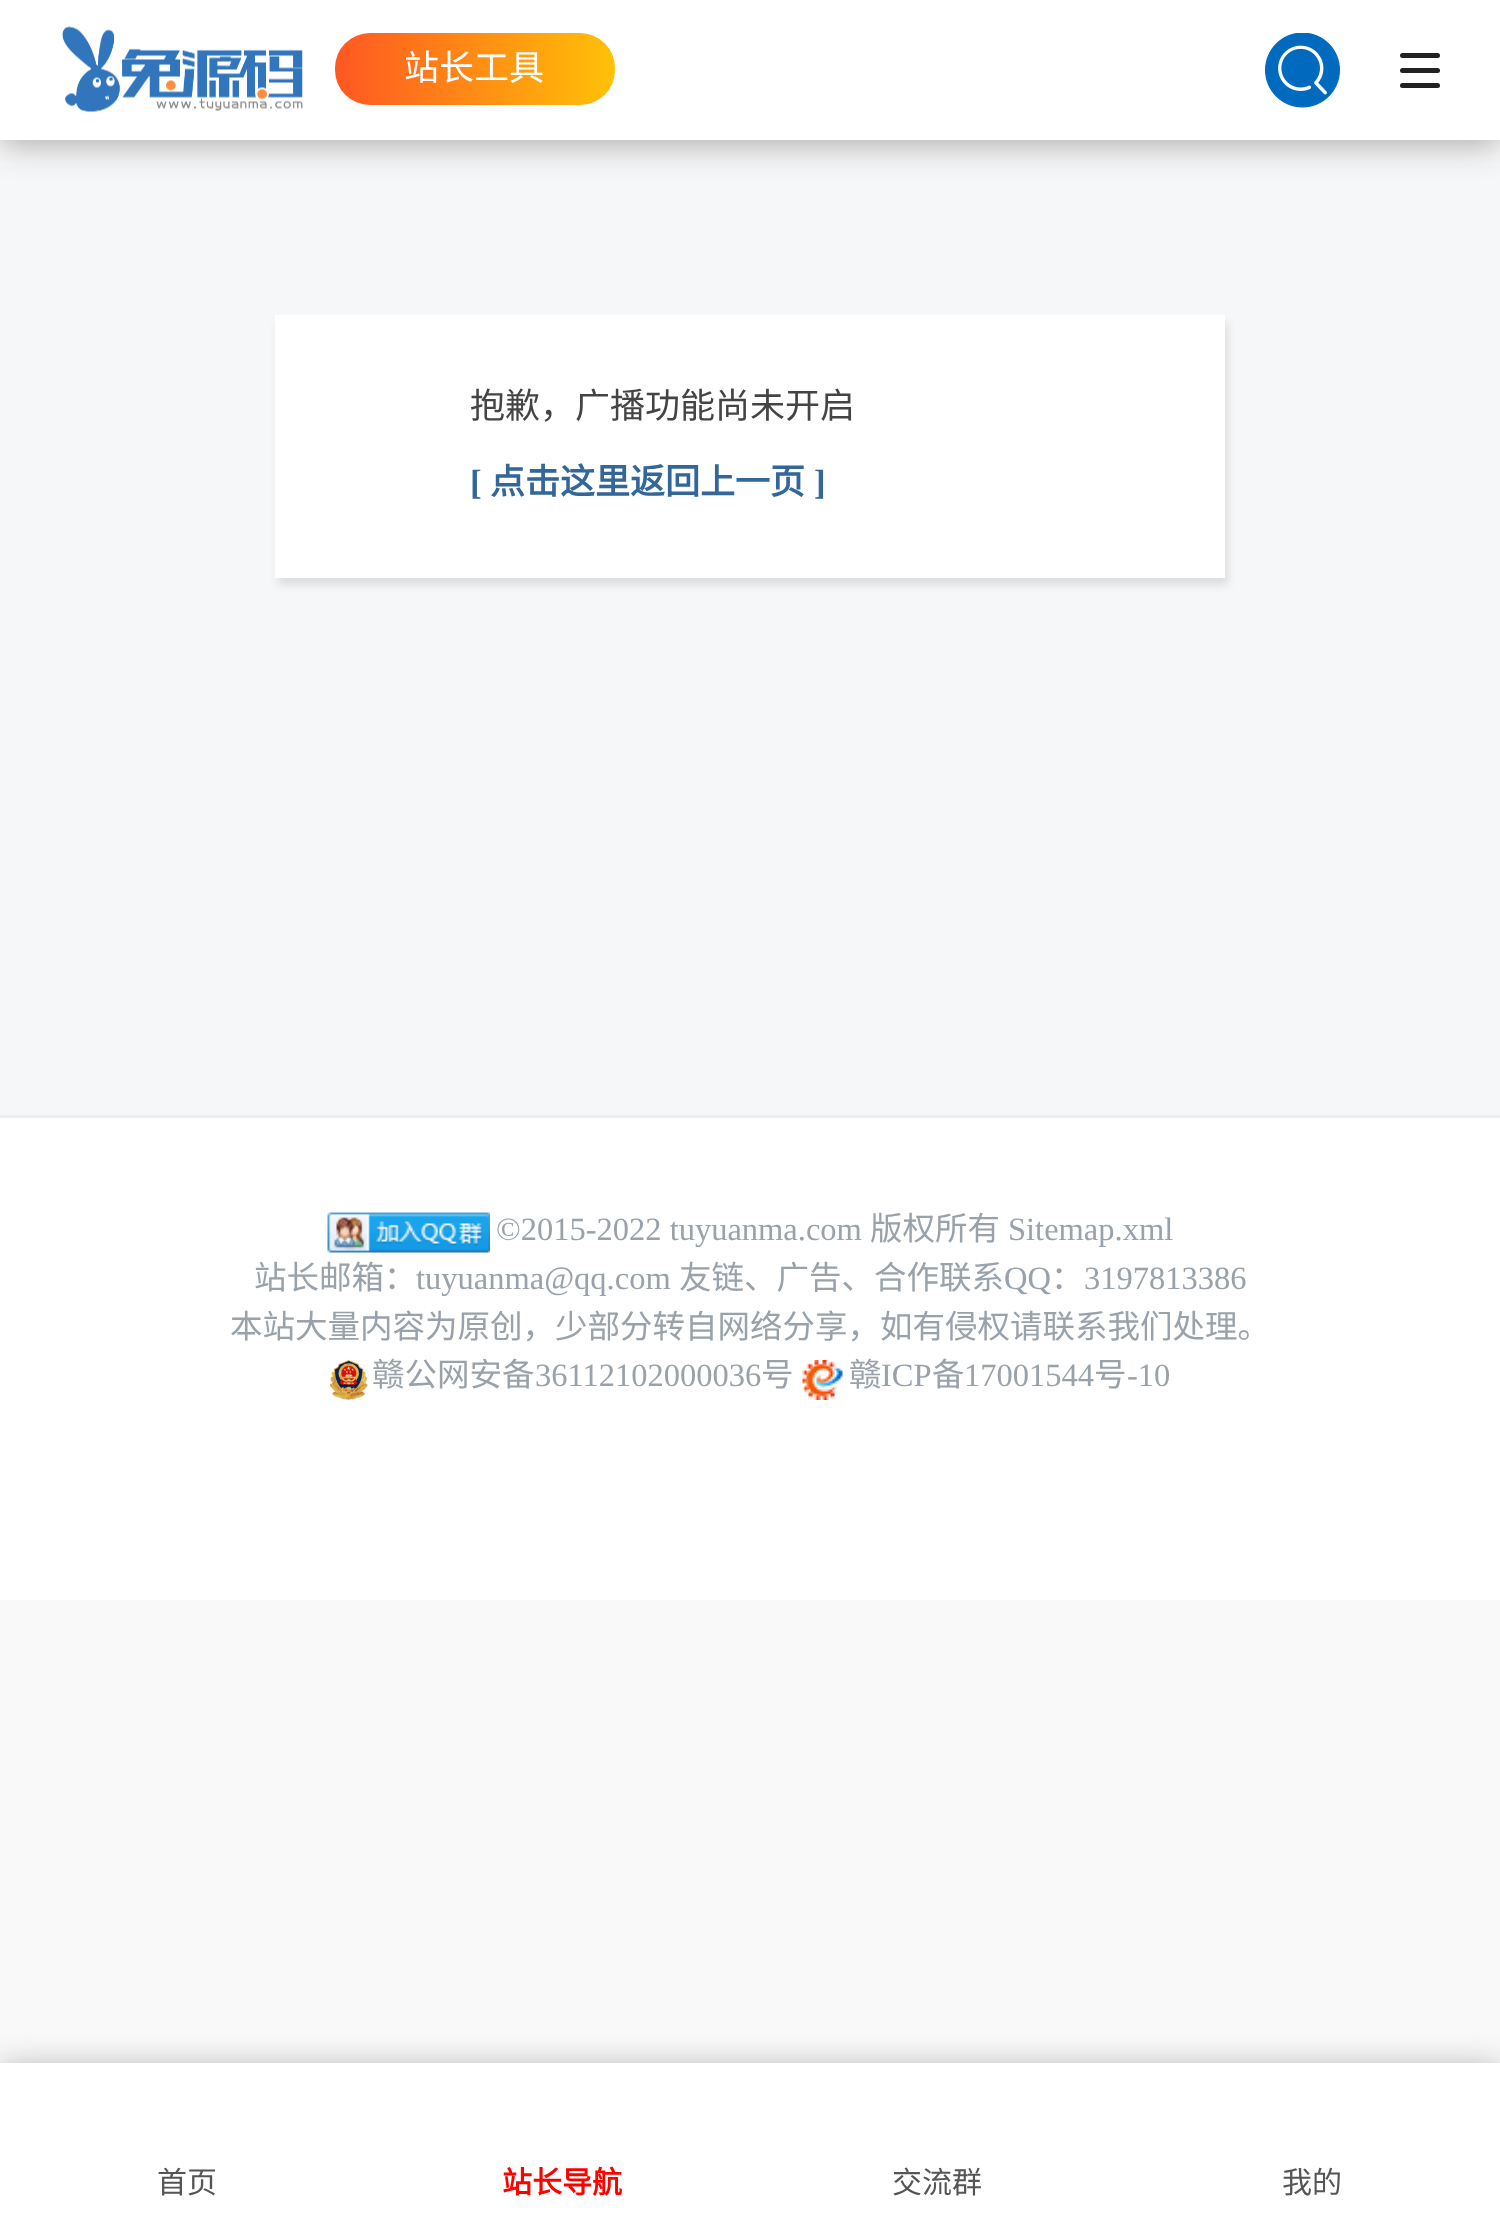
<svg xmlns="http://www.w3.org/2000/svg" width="1500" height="2223">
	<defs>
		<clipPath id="clip1"><rect x="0" y="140" width="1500" height="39" /></clipPath>
		<linearGradient id="g1" gradientUnits="userSpaceOnUse" x1="335" y1="69" x2="615" y2="69"><stop offset="0" stop-color="#FF5722" /><stop offset="1" stop-color="#FFC107" /></linearGradient>
	</defs>
	<rect width="100%" height="100%" fill="#F9F9F9" />
	<rect x="0" y="0" width="1500" height="140" fill="#FFFFFF" />
	<rect x="0" y="165" width="1500" height="950" fill="#F6F7F8" />
	<g clip-path="url(#clip1)">
		<rect x="0" y="5" width="1500" height="140" fill="#AAAAAA" filter="blur(16.5px)" />
	</g>
	<image x="62" y="26" width="241" height="86" href="assets/img1.png" />
	<rect x="335" y="33" width="280" height="72" rx="35" fill="url(#g1)" />
	<text x="404" y="80" font-family="Noto Sans CJK SC" font-size="35" fill="#FFFFFF">站长工具</text>
	<image x="1265" y="33" width="75" height="75" href="assets/img2.png" />
	<rect x="1400" y="53" width="40" height="5" rx="2.5" fill="#222222" />
	<rect x="1400" y="68" width="40" height="5" rx="2.5" fill="#222222" />
	<rect x="1400" y="83" width="40" height="5" rx="2.5" fill="#222222" />
	<rect x="278" y="323" width="950" height="262" fill="#000000" fill-opacity="0.1" filter="blur(4px)" />
	<rect x="275" y="315" width="950" height="263" fill="#FFFFFF" />
	<text x="470" y="418" font-family="Noto Sans CJK SC" font-size="35" fill="#444444">抱歉，广播功能尚未开启</text>
	<text x="470" y="494" font-family="Liberation Serif" font-size="35" font-weight="700" fill="#336699">[</text>
	<text x="490" y="494" font-family="Noto Sans CJK SC" font-size="35" font-weight="700" fill="#336699">点击这里返回上一页</text>
	<text x="814" y="494" font-family="Liberation Serif" font-size="35" font-weight="700" fill="#336699">]</text>
	<rect x="0" y="1118" width="1500" height="482" fill="#FFFFFF" />
	<rect x="0" y="1115" width="1500" height="3" fill="#EEEEEE" />
	<image x="327" y="1212" width="163" height="41" href="assets/img3.png" />
	<text x="496" y="1240" font-family="Liberation Serif" font-size="32.5" fill="#99A2AA">©2015-2022 tuyuanma.com</text>
	<text x="870" y="1240" font-family="Noto Sans CJK SC" font-size="32.5" fill="#99A2AA">版权所有</text>
	<text x="1008" y="1240" font-family="Liberation Serif" font-size="32.5" fill="#99A2AA">Sitemap.xml</text>
	<text x="254" y="1289" font-family="Noto Sans CJK SC" font-size="32.5" fill="#99A2AA">站长邮箱：</text>
	<text x="416" y="1289" font-family="Liberation Serif" font-size="32.5" fill="#99A2AA">tuyuanma@qq.com</text>
	<text x="679" y="1289" font-family="Noto Sans CJK SC" font-size="32.5" fill="#99A2AA">友链、广告、合作联系</text>
	<text x="1004" y="1289" font-family="Liberation Serif" font-size="32.5" fill="#99A2AA">QQ</text>
	<text x="1051" y="1289" font-family="Noto Sans CJK SC" font-size="32.5" fill="#99A2AA">：</text>
	<text x="1084" y="1289" font-family="Liberation Serif" font-size="32.5" fill="#99A2AA">3197813386</text>
	<text x="230" y="1338" font-family="Noto Sans CJK SC" font-size="32.5" fill="#99A2AA">本站大量内容为原创，少部分转自网络分享，如有侵权请联系我们处理。</text>
	<image x="330" y="1360" width="38" height="40" href="assets/img4.png" />
	<text x="372" y="1386" font-family="Noto Sans CJK SC" font-size="32.5" fill="#99A2AA">赣公网安备</text>
	<text x="535" y="1386" font-family="Liberation Serif" font-size="32.5" fill="#99A2AA">36112102000036</text>
	<text x="761" y="1386" font-family="Noto Sans CJK SC" font-size="32.5" fill="#99A2AA">号</text>
	<image x="802" y="1360" width="41" height="40" href="assets/img5.png" />
	<text x="849" y="1386" font-family="Noto Sans CJK SC" font-size="32.5" fill="#99A2AA">赣</text>
	<text x="881" y="1386" font-family="Liberation Serif" font-size="32.5" fill="#99A2AA">ICP</text>
	<text x="932" y="1386" font-family="Noto Sans CJK SC" font-size="32.5" fill="#99A2AA">备</text>
	<text x="964" y="1386" font-family="Liberation Serif" font-size="32.5" fill="#99A2AA">17001544</text>
	<text x="1094" y="1386" font-family="Noto Sans CJK SC" font-size="32.5" fill="#99A2AA">号</text>
	<text x="1127" y="1386" font-family="Liberation Serif" font-size="32.5" fill="#99A2AA">-10</text>
	<rect x="0" y="2068" width="1500" height="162" fill="#AAAAAA" filter="blur(16.5px)" />
	<rect x="0" y="2063" width="1500" height="160" fill="#FFFFFF" />
	<text x="157" y="2193" font-family="Noto Sans CJK SC" font-size="30" fill="#555555">首页</text>
	<text x="502" y="2193" font-family="Noto Sans CJK SC" font-size="30" font-weight="700" fill="#FF0000">站长导航</text>
	<g font-family="Noto Sans CJK SC" font-size="30" fill="#555555">
		<text x="892" y="2193">交流群</text>
		<text x="1282" y="2193">我的</text>
	</g>
</svg>
